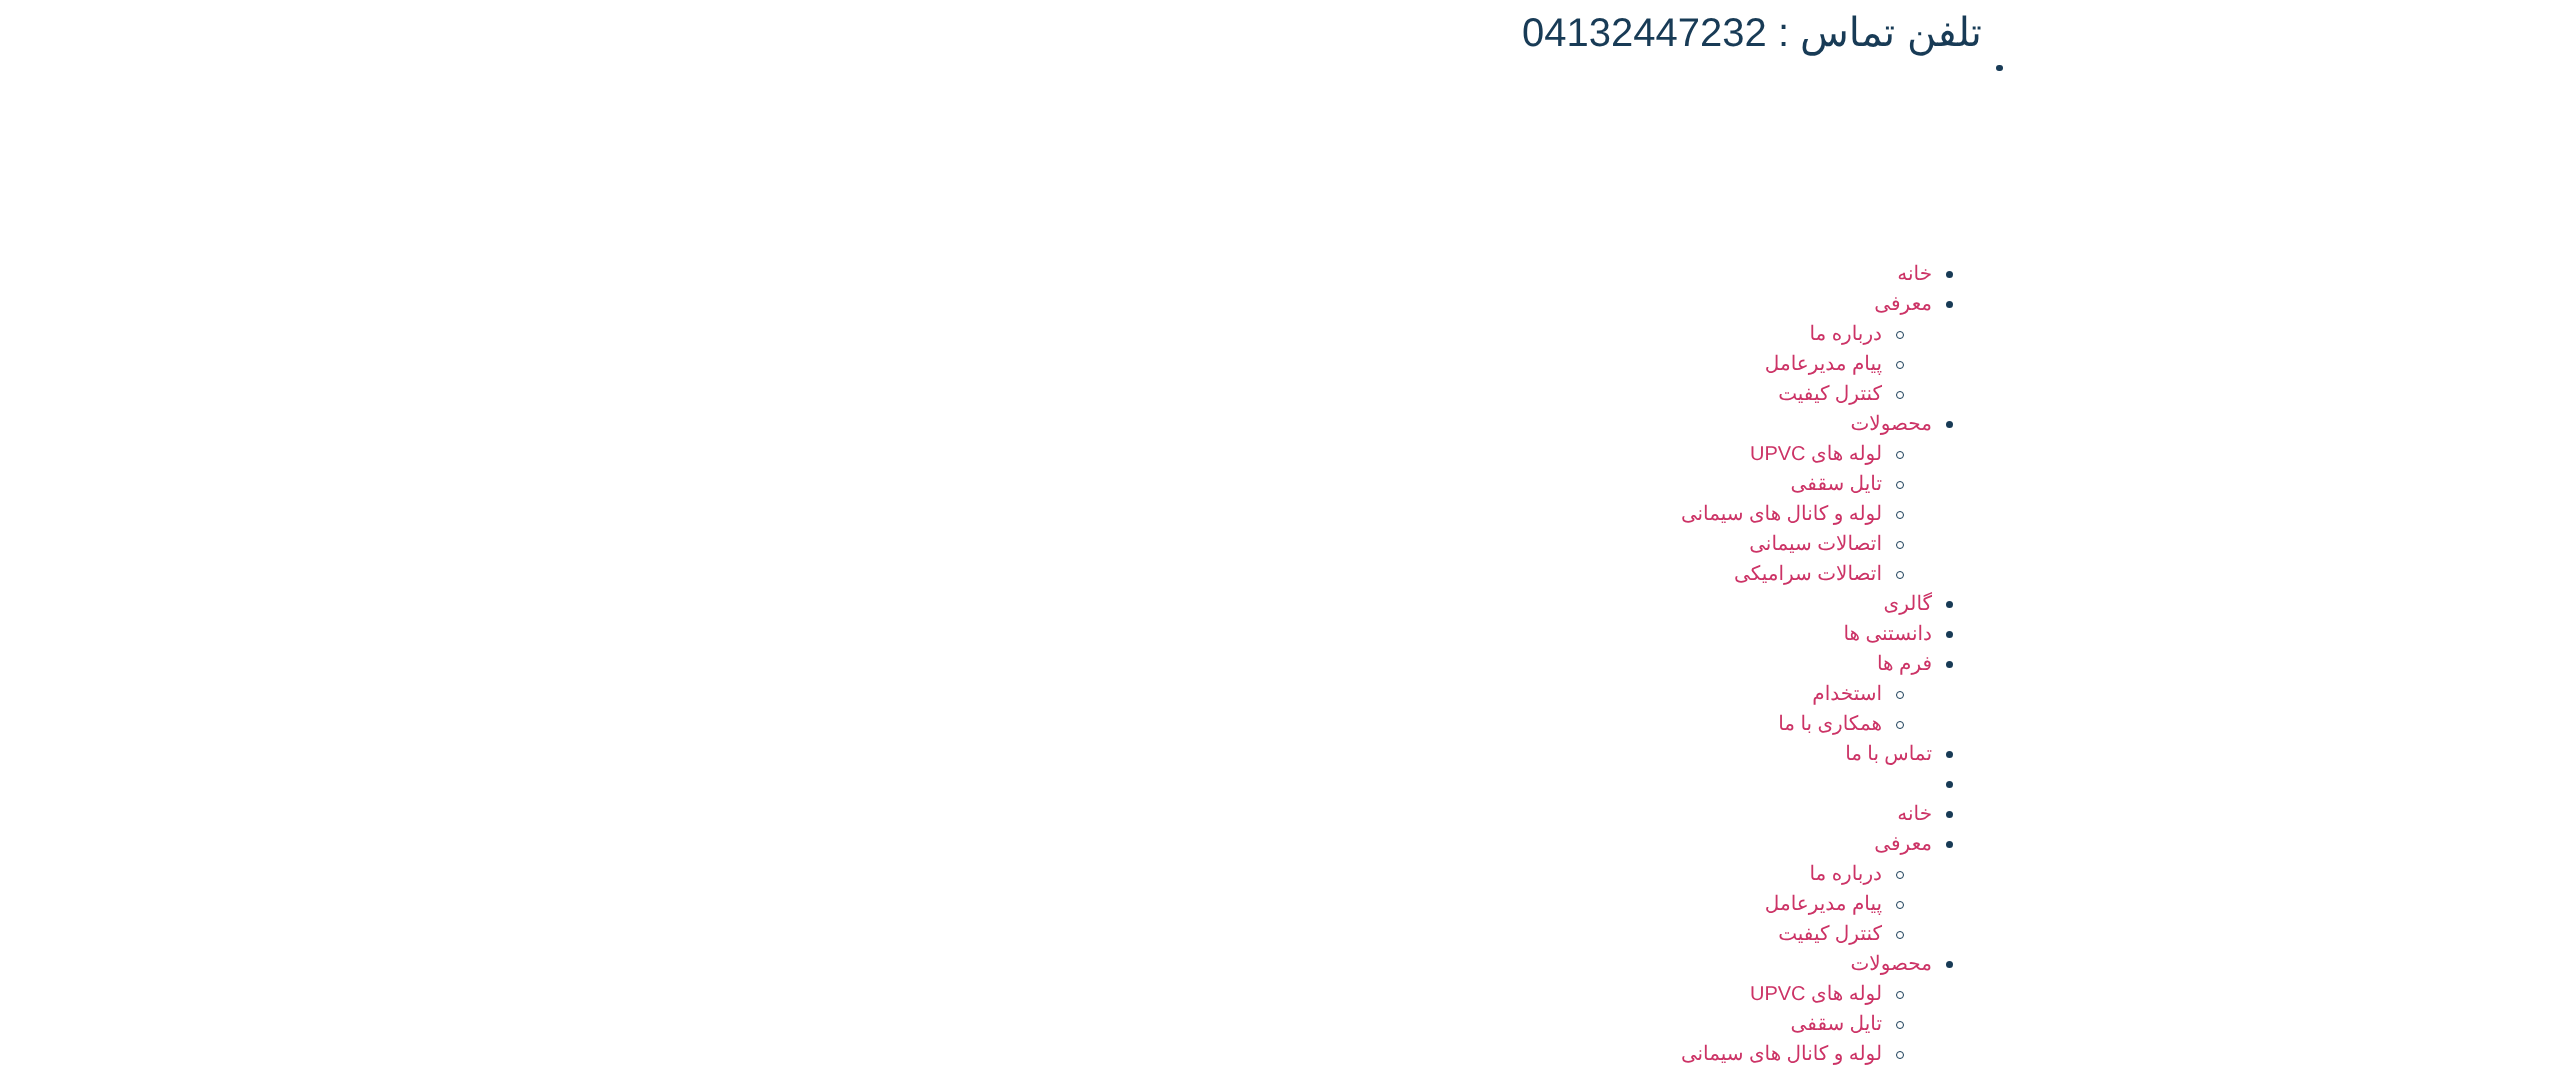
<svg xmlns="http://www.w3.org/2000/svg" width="2563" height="1066">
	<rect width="100%" height="100%" fill="#FFFFFF" />
	<text x="1982" y="46" word-spacing="-1" font-family="DejaVu Sans" font-size="40" direction="rtl" fill="#183B56">تلفن تماس</text>
	<text x="1789" y="46" font-family="Liberation Sans" font-size="40" direction="rtl" fill="#183B56">:</text>
	<text x="1522" y="46" font-family="Liberation Sans" font-size="40" fill="#183B56">04132447232</text>
	<rect x="1996" y="65" width="7" height="6" rx="3" fill="#183B56" />
	<circle cx="1949.5" cy="274.5" r="3.5" fill="#183B56" />
	<text x="1932" y="280" font-family="DejaVu Sans" font-size="20" direction="rtl" fill="#CC3366">خانه</text>
	<circle cx="1949.5" cy="304.5" r="3.5" fill="#183B56" />
	<text x="1932" y="310" font-family="DejaVu Sans" font-size="20" direction="rtl" fill="#CC3366">معرفی</text>
	<circle cx="1900" cy="335" r="3.5" fill="none" stroke="#183B56" />
	<text x="1882" y="340" word-spacing="-1" font-family="DejaVu Sans" font-size="20" direction="rtl" fill="#CC3366">درباره ما</text>
	<circle cx="1900" cy="365" r="3.5" fill="none" stroke="#183B56" />
	<text x="1882" y="370" word-spacing="-1" font-family="DejaVu Sans" font-size="20" direction="rtl" fill="#CC3366">پیام مدیرعامل</text>
	<circle cx="1900" cy="395" r="3.5" fill="none" stroke="#183B56" />
	<text x="1882" y="400" word-spacing="-1" font-family="DejaVu Sans" font-size="20" direction="rtl" fill="#CC3366">کنترل کیفیت</text>
	<circle cx="1949.5" cy="424.5" r="3.5" fill="#183B56" />
	<text x="1932" y="430" font-family="DejaVu Sans" font-size="20" direction="rtl" fill="#CC3366">محصولات</text>
	<circle cx="1900" cy="455" r="3.5" fill="none" stroke="#183B56" />
	<text x="1882" y="460" word-spacing="-1" font-family="DejaVu Sans" font-size="20" direction="rtl" fill="#CC3366">لوله های</text>
	<text x="1750" y="460" font-family="Liberation Sans" font-size="20" fill="#CC3366">UPVC</text>
	<circle cx="1900" cy="485" r="3.5" fill="none" stroke="#183B56" />
	<text x="1882" y="490" word-spacing="-1" font-family="DejaVu Sans" font-size="20" direction="rtl" fill="#CC3366">تایل سقفی</text>
	<circle cx="1900" cy="515" r="3.5" fill="none" stroke="#183B56" />
	<text x="1882" y="520" word-spacing="-1" font-family="DejaVu Sans" font-size="20" direction="rtl" fill="#CC3366">لوله و کانال های سیمانی</text>
	<circle cx="1900" cy="545" r="3.5" fill="none" stroke="#183B56" />
	<text x="1882" y="550" word-spacing="-1" font-family="DejaVu Sans" font-size="20" direction="rtl" fill="#CC3366">اتصالات سیمانی</text>
	<circle cx="1900" cy="575" r="3.5" fill="none" stroke="#183B56" />
	<text x="1882" y="580" word-spacing="-1" font-family="DejaVu Sans" font-size="20" direction="rtl" fill="#CC3366">اتصالات سرامیکی</text>
	<circle cx="1949.5" cy="604.5" r="3.5" fill="#183B56" />
	<text x="1932" y="610" font-family="DejaVu Sans" font-size="20" direction="rtl" fill="#CC3366">گالری</text>
	<circle cx="1949.5" cy="634.5" r="3.5" fill="#183B56" />
	<text x="1932" y="640" word-spacing="-1" font-family="DejaVu Sans" font-size="20" direction="rtl" fill="#CC3366">دانستنی ها</text>
	<circle cx="1949.5" cy="664.5" r="3.5" fill="#183B56" />
	<text x="1932" y="670" word-spacing="-1" font-family="DejaVu Sans" font-size="20" direction="rtl" fill="#CC3366">فرم ها</text>
	<circle cx="1900" cy="695" r="3.5" fill="none" stroke="#183B56" />
	<text x="1882" y="700" font-family="DejaVu Sans" font-size="20" direction="rtl" fill="#CC3366">استخدام</text>
	<circle cx="1900" cy="725" r="3.5" fill="none" stroke="#183B56" />
	<text x="1882" y="730" word-spacing="-1" font-family="DejaVu Sans" font-size="20" direction="rtl" fill="#CC3366">همکاری با ما</text>
	<circle cx="1949.5" cy="754.5" r="3.5" fill="#183B56" />
	<text x="1932" y="760" word-spacing="-1" font-family="DejaVu Sans" font-size="20" direction="rtl" fill="#CC3366">تماس با ما</text>
	<circle cx="1949.5" cy="784.5" r="3.5" fill="#183B56" />
	<circle cx="1949.5" cy="814.5" r="3.5" fill="#183B56" />
	<text x="1932" y="820" font-family="DejaVu Sans" font-size="20" direction="rtl" fill="#CC3366">خانه</text>
	<circle cx="1949.5" cy="844.5" r="3.5" fill="#183B56" />
	<text x="1932" y="850" font-family="DejaVu Sans" font-size="20" direction="rtl" fill="#CC3366">معرفی</text>
	<circle cx="1900" cy="875" r="3.5" fill="none" stroke="#183B56" />
	<text x="1882" y="880" word-spacing="-1" font-family="DejaVu Sans" font-size="20" direction="rtl" fill="#CC3366">درباره ما</text>
	<circle cx="1900" cy="905" r="3.5" fill="none" stroke="#183B56" />
	<text x="1882" y="910" word-spacing="-1" font-family="DejaVu Sans" font-size="20" direction="rtl" fill="#CC3366">پیام مدیرعامل</text>
	<circle cx="1900" cy="935" r="3.5" fill="none" stroke="#183B56" />
	<text x="1882" y="940" word-spacing="-1" font-family="DejaVu Sans" font-size="20" direction="rtl" fill="#CC3366">کنترل کیفیت</text>
	<circle cx="1949.5" cy="964.5" r="3.5" fill="#183B56" />
	<text x="1932" y="970" font-family="DejaVu Sans" font-size="20" direction="rtl" fill="#CC3366">محصولات</text>
	<circle cx="1900" cy="995" r="3.5" fill="none" stroke="#183B56" />
	<text x="1882" y="1000" word-spacing="-1" font-family="DejaVu Sans" font-size="20" direction="rtl" fill="#CC3366">لوله های</text>
	<text x="1750" y="1000" font-family="Liberation Sans" font-size="20" fill="#CC3366">UPVC</text>
	<circle cx="1900" cy="1025" r="3.5" fill="none" stroke="#183B56" />
	<text x="1882" y="1030" word-spacing="-1" font-family="DejaVu Sans" font-size="20" direction="rtl" fill="#CC3366">تایل سقفی</text>
	<circle cx="1900" cy="1055" r="3.5" fill="none" stroke="#183B56" />
	<text x="1882" y="1060" word-spacing="-1" font-family="DejaVu Sans" font-size="20" direction="rtl" fill="#CC3366">لوله و کانال های سیمانی</text>
</svg>
